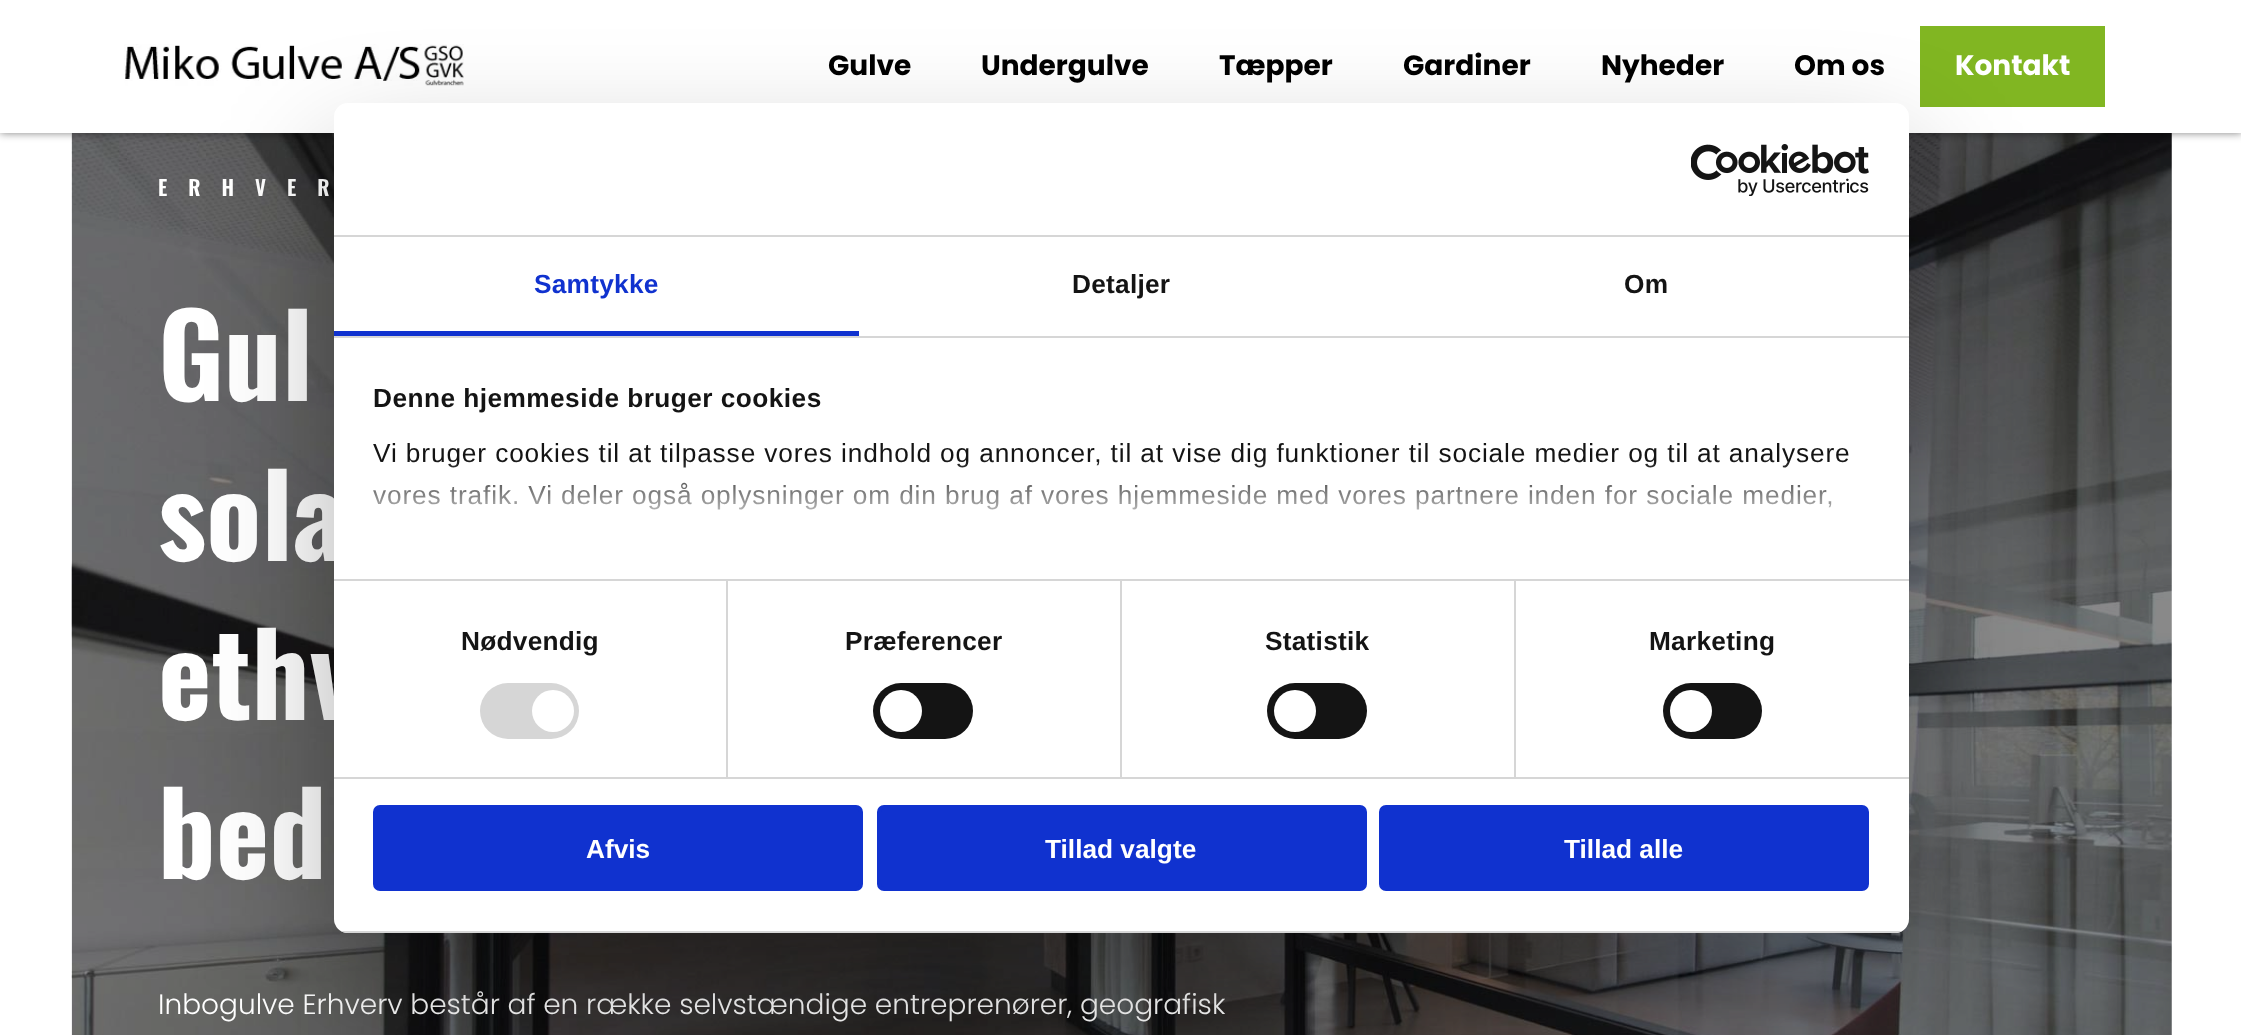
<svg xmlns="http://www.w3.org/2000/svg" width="2241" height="1035">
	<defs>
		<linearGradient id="g1" gradientUnits="userSpaceOnUse" x1="1103" y1="580" x2="1103" y2="459"><stop offset="0" stop-color="#FFFFFF" /><stop offset="0.5" stop-color="#FFFFFF" stop-opacity="0.8" /><stop offset="1" stop-color="#FFFFFF" stop-opacity="0" /></linearGradient>
		<clipPath id="clip1"><rect x="334" y="103" width="1575" height="830" rx="14" /></clipPath>
	</defs>
	<rect width="100%" height="100%" fill="#FFFFFF" />
	<image x="71" y="133" width="2101" height="902" href="assets/img2.png" />
	<rect x="0" y="0" width="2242" height="133" fill="#000000" fill-opacity="0.5" filter="blur(4.5px)" />
	<rect x="0" y="0" width="2241" height="133" fill="#FFFFFF" />
	<image x="124" y="44" width="340" height="42" href="assets/img1.png" />
	<g font-family="Poppins" font-size="28" font-weight="700" fill="#000000">
		<text x="828" y="75">Gulve</text>
		<text x="981" y="75">Undergulve</text>
		<text x="1219" y="75">Tæpper</text>
		<text x="1403" y="75">Gardiner</text>
		<text x="1601" y="75">Nyheder</text>
		<text x="1794" y="75">Om os</text>
	</g>
	<rect x="1920" y="26" width="185" height="81" fill="#81B622" />
	<text x="1955" y="75" font-family="Poppins" font-size="28" font-weight="700" fill="#FFFFFF">Kontakt</text>
	<text x="158" y="196" font-family="Oswald" font-size="21" font-weight="600" letter-spacing="21" fill="#FFFFFF">ERHVER</text>
	<g font-family="Oswald" font-size="114" font-weight="700" fill="#FFFFFF">
		<text x="158" y="401">Gul</text>
		<text x="158" y="561">sola</text>
		<text x="158" y="720">ethv</text>
		<text x="158" y="879">bed</text>
	</g>
	<text x="158" y="1014" font-family="Poppins" font-size="28" font-weight="300" fill="#FFFFFF">Inbogulve Erhverv består af en række selvstændige entreprenører, geografisk</text>
	<rect x="334" y="159" width="1575" height="830" rx="14" fill="#000000" fill-opacity="0.3" filter="blur(59.5px)" />
	<rect x="334" y="103" width="1575" height="830" rx="14" fill="#FFFFFF" />
	<rect x="334" y="235" width="1575" height="2" fill="#D6D6D6" />
	<image x="1691" y="144" width="178" height="52" href="assets/img3.png" />
	<rect x="334" y="336" width="1575" height="2" fill="#D6D6D6" />
	<rect x="334" y="331" width="525" height="5" fill="#1032CF" />
	<text x="534" y="293" font-family="Liberation Sans" font-size="26.25" font-weight="700" letter-spacing="0.25" fill="#1032CF">Samtykke</text>
	<g font-family="Liberation Sans" font-size="26.25" font-weight="700" letter-spacing="0.25" fill="#141414">
		<text x="1072" y="293">Detaljer</text>
		<text x="1624" y="293">Om</text>
	</g>
	<rect x="334" y="579" width="1575" height="2" fill="#D6D6D6" />
	<text x="373" y="407" font-family="Liberation Sans" font-size="26.25" font-weight="700" letter-spacing="0.45" fill="#141414">Denne hjemmeside bruger cookies</text>
	<g font-family="Liberation Sans" font-size="26.25" letter-spacing="0.88" fill="#141414">
		<text x="373" y="462">Vi bruger cookies til at tilpasse vores indhold og annoncer, til at vise dig funktioner til sociale medier og til at analysere</text>
		<text x="373" y="504">vores trafik. Vi deler også oplysninger om din brug af vores hjemmeside med vores partnere inden for sociale medier,</text>
	</g>
	<rect x="372" y="461" width="1473" height="49" fill="url(#g1)" />
	<rect x="334" y="777" width="1575" height="2" fill="#D6D6D6" />
	<rect x="726" y="581" width="2" height="196" fill="#D6D6D6" />
	<text x="461" y="650" font-family="Liberation Sans" font-size="26.25" font-weight="700" letter-spacing="0.25" fill="#141414">Nødvendig</text>
	<rect x="480" y="683" width="99" height="56" rx="28" fill="#D6D6D6" />
	<circle cx="553" cy="711" r="21" fill="#FFFFFF" />
	<rect x="1120" y="581" width="2" height="196" fill="#D6D6D6" />
	<text x="845" y="650" font-family="Liberation Sans" font-size="26.25" font-weight="700" letter-spacing="0.25" fill="#141414">Præferencer</text>
	<rect x="873" y="683" width="100" height="56" rx="28" fill="#141414" />
	<circle cx="901" cy="711" r="21" fill="#FFFFFF" />
	<rect x="1514" y="581" width="2" height="196" fill="#D6D6D6" />
	<text x="1265" y="650" font-family="Liberation Sans" font-size="26.25" font-weight="700" letter-spacing="0.25" fill="#141414">Statistik</text>
	<rect x="1267" y="683" width="100" height="56" rx="28" fill="#141414" />
	<circle cx="1295" cy="711" r="21" fill="#FFFFFF" />
	<text x="1649" y="650" font-family="Liberation Sans" font-size="26.25" font-weight="700" letter-spacing="0.25" fill="#141414">Marketing</text>
	<rect x="1663" y="683" width="99" height="56" rx="28" fill="#141414" />
	<circle cx="1691" cy="711" r="21" fill="#FFFFFF" />
	<g clip-path="url(#clip1)">
		<rect x="334" y="931" width="1575" height="2" fill="#D6D6D6" />
	</g>
	<rect x="375" y="807" width="486" height="82" rx="5" fill="#1032CF" stroke="#1032CF" stroke-width="4" />
	<text x="586" y="858" font-family="Liberation Sans" font-size="26.25" font-weight="700" fill="#FFFFFF">Afvis</text>
	<rect x="879" y="807" width="486" height="82" rx="5" fill="#1032CF" stroke="#1032CF" stroke-width="4" />
	<text x="1045" y="858" font-family="Liberation Sans" font-size="26.25" font-weight="700" fill="#FFFFFF">Tillad valgte</text>
	<rect x="1381" y="807" width="486" height="82" rx="5" fill="#1032CF" stroke="#1032CF" stroke-width="4" />
	<text x="1564" y="858" font-family="Liberation Sans" font-size="26.25" font-weight="700" fill="#FFFFFF">Tillad alle</text>
</svg>
